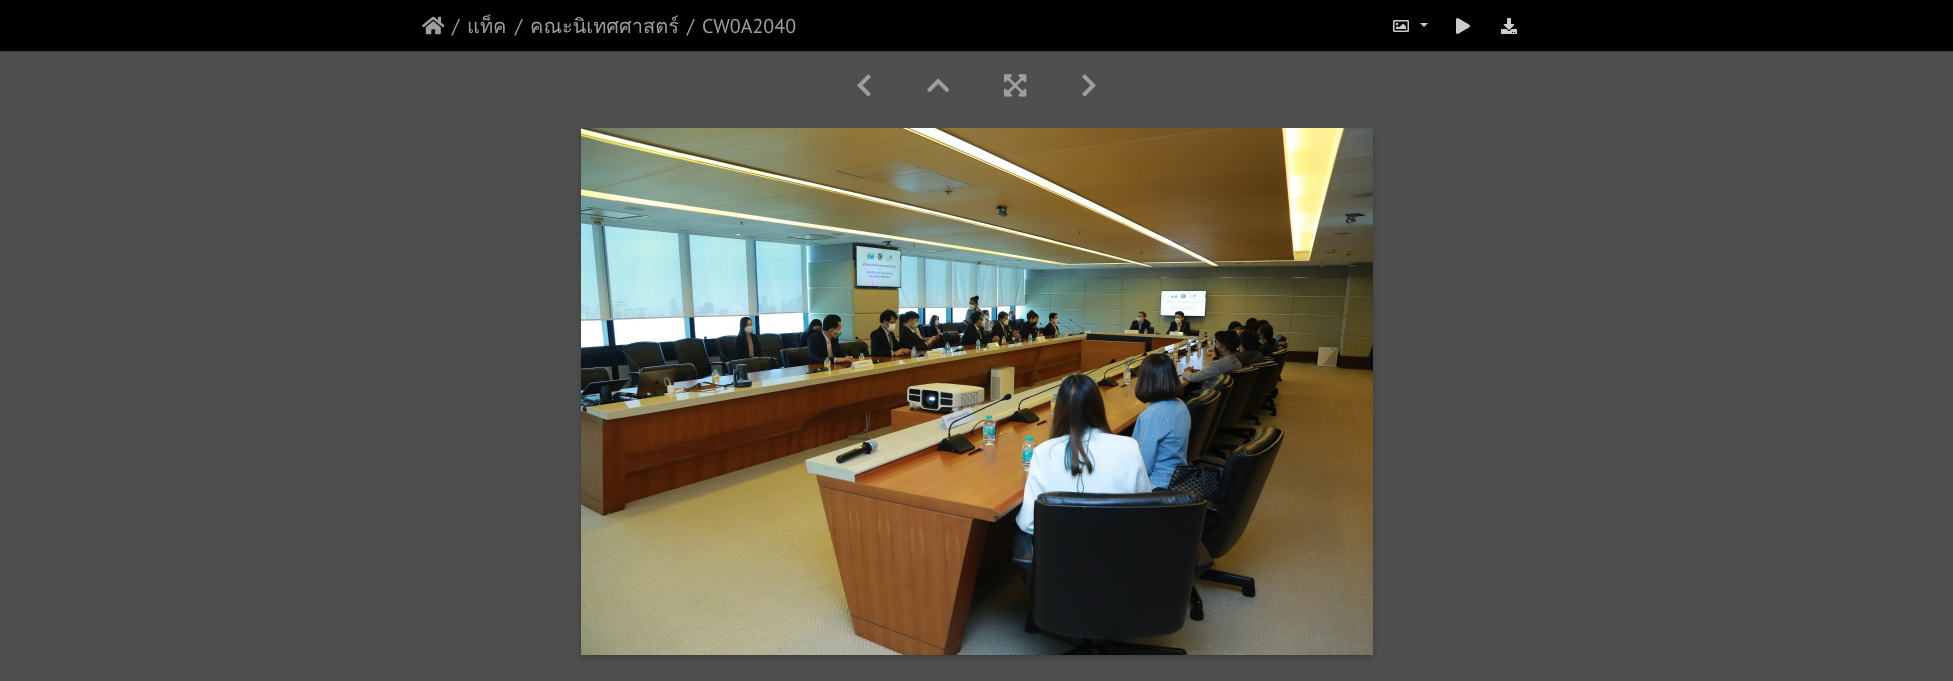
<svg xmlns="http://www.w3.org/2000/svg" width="1953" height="681">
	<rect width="100%" height="100%" fill="#4F4F4F" />
	<rect x="0" y="1" width="1953" height="51" fill="#000000" fill-opacity="0.24" filter="blur(1px)" />
	<rect x="0" y="0" width="1953" height="51" fill="#000000" />
	<image x="422" y="16" width="22" height="19" href="assets/img1.png" />
	<text x="452" y="33" font-family="PT Sans" font-size="20" fill="#9E9E9E">/</text>
	<text x="467" y="33" font-family="Loma" font-size="20" fill="#9E9E9E">แท็ค</text>
	<text x="515" y="33" font-family="PT Sans" font-size="20" fill="#9E9E9E">/</text>
	<text x="530" y="33" font-family="Loma" font-size="20" fill="#9E9E9E">คณะนิเทศศาสตร์</text>
	<g font-family="PT Sans" font-size="20" fill="#9E9E9E">
		<text x="687" y="33">/</text>
		<text x="702" y="33">CW0A2040</text>
	</g>
	<image x="1393" y="20" width="16" height="12" href="assets/img2.png" />
	<path d="M1420 23H1428L1424 27Z" fill="#CCCCCC" />
	<image x="1456" y="18" width="14" height="16" href="assets/img3.png" />
	<image x="1501" y="18" width="16" height="16" href="assets/img4.png" />
	<image x="857" y="74" width="14" height="23" href="assets/img5.png" />
	<image x="927" y="78" width="22" height="14" href="assets/img6.png" />
	<image x="1004" y="74" width="23" height="23" href="assets/img7.png" />
	<image x="1082" y="74" width="14" height="23" href="assets/img8.png" />
	<rect x="581" y="131" width="792" height="527" fill="#000000" fill-opacity="0.23" filter="blur(3px)" />
	<image x="581" y="128" width="792" height="527" href="assets/img9.png" />
</svg>
